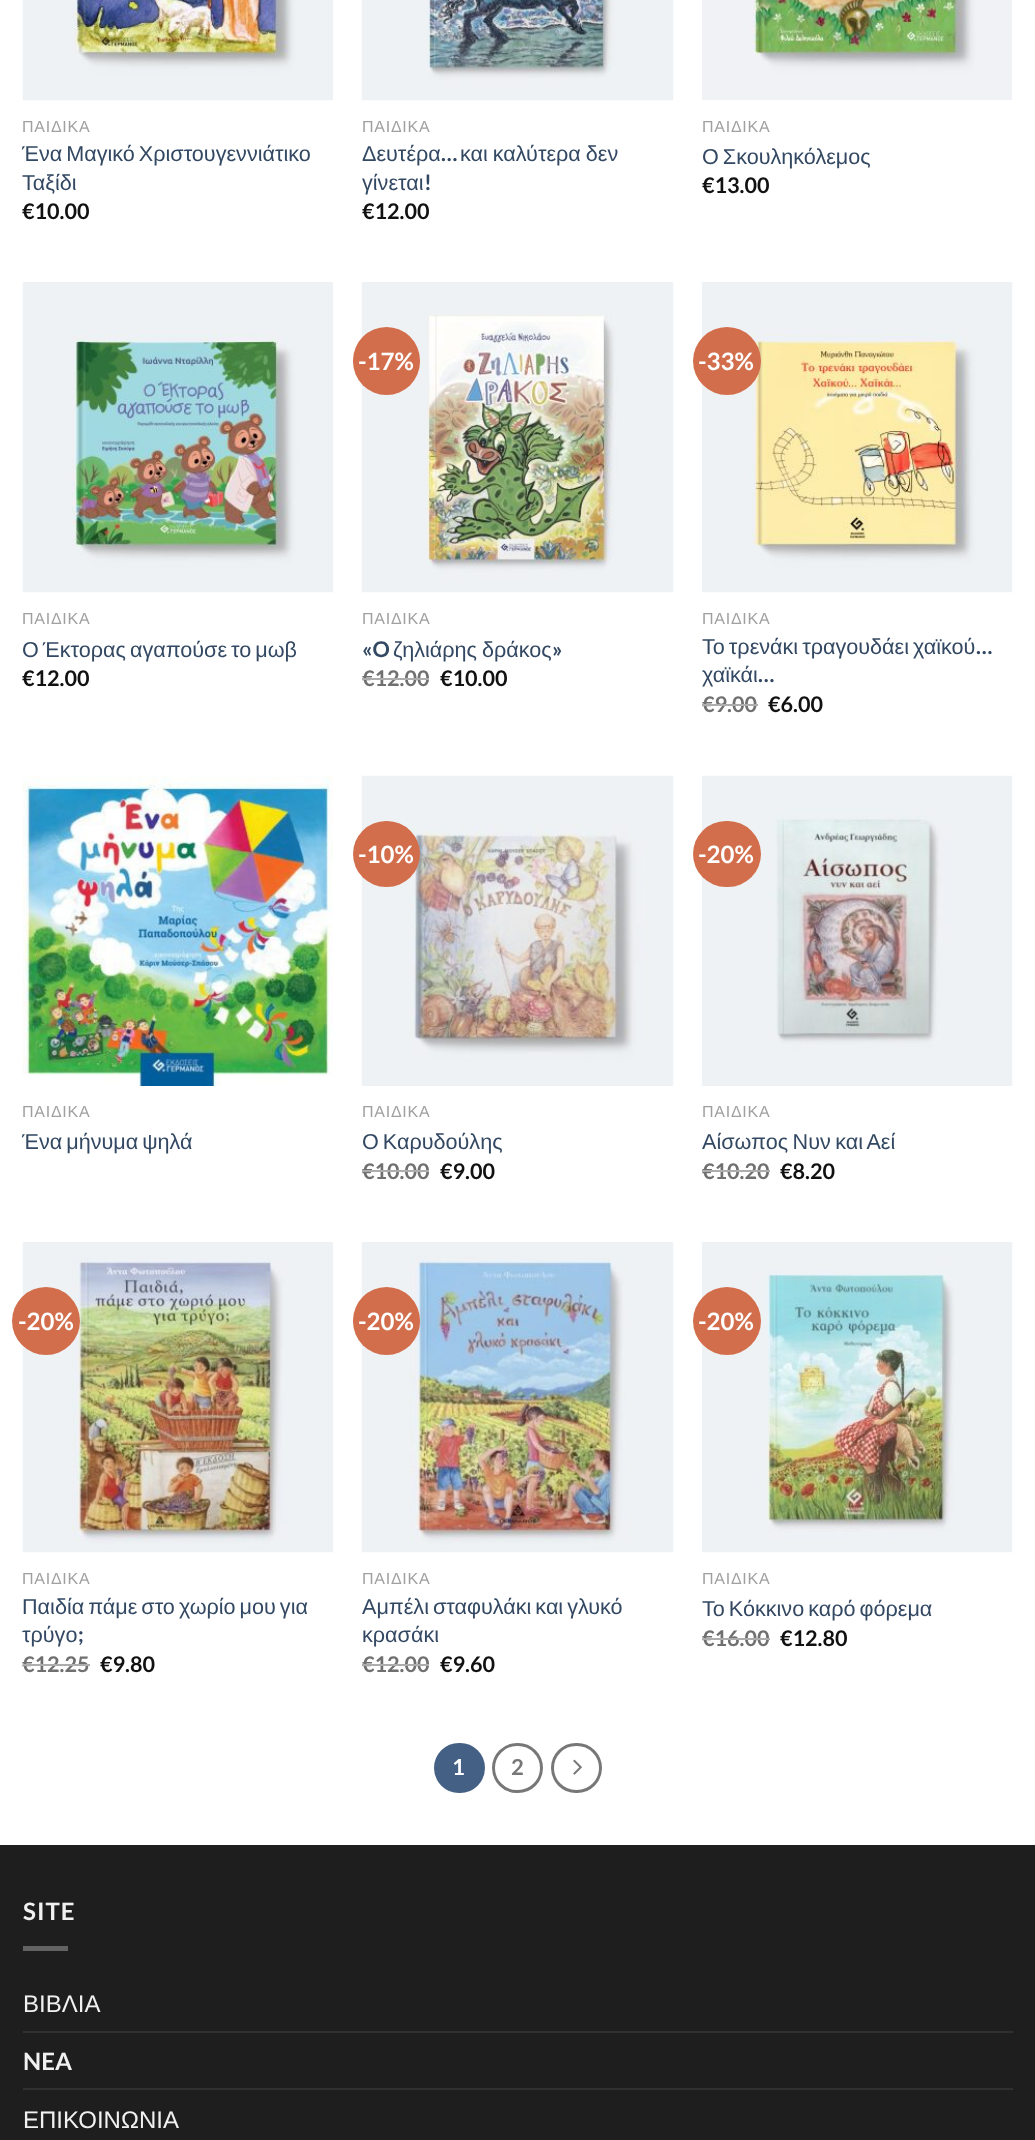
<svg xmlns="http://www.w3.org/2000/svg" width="1035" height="2140">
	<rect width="100%" height="100%" fill="#FFFFFF" />
	<image x="22" y="0" width="311" height="101" href="assets/img1.png" />
	<text x="22" y="132" font-family="Liberation Sans" font-size="16" letter-spacing="0.75" fill="#A0A0A0">ΠΑΙΔΙΚΑ</text>
	<g font-family="Liberation Sans" font-size="21.6" fill="#334862">
		<text x="22" y="161" word-spacing="-2">Ένα Μαγικό Χριστουγεννιάτικο</text>
		<text x="22" y="190">Ταξίδι</text>
	</g>
	<text x="22" y="219" font-family="Lato" font-size="21.6" font-weight="700" fill="#111111">€10.00</text>
	<image x="361" y="0" width="313" height="101" href="assets/img2.png" />
	<text x="362" y="132" font-family="Liberation Sans" font-size="16" letter-spacing="0.75" fill="#A0A0A0">ΠΑΙΔΙΚΑ</text>
	<text x="362" y="161" font-family="Liberation Sans" font-size="21.6" fill="#334862">Δευτέρα</text>
	<text x="441" y="161" font-family="Lato" font-size="21.6" font-weight="700" fill="#334862">…</text>
	<g font-family="Liberation Sans" font-size="21.6" fill="#334862">
		<text x="460" y="161" word-spacing="-1">και καλύτερα δεν</text>
		<text x="362" y="190">γίνεται</text>
	</g>
	<text x="424" y="190" font-family="Lato" font-size="21.6" font-weight="700" fill="#334862">!</text>
	<text x="362" y="219" font-family="Lato" font-size="21.6" font-weight="700" fill="#111111">€12.00</text>
	<image x="702" y="0" width="310" height="100" href="assets/img3.png" />
	<text x="702" y="132" font-family="Liberation Sans" font-size="16" letter-spacing="0.75" fill="#A0A0A0">ΠΑΙΔΙΚΑ</text>
	<text x="702" y="164" word-spacing="-2" font-family="Liberation Sans" font-size="21.6" fill="#334862">Ο Σκουληκόλεμος</text>
	<text x="702" y="193" font-family="Lato" font-size="21.6" font-weight="700" fill="#111111">€13.00</text>
	<image x="22" y="282" width="311" height="311" href="assets/img4.png" />
	<text x="22" y="624" font-family="Liberation Sans" font-size="16" letter-spacing="0.75" fill="#A0A0A0">ΠΑΙΔΙΚΑ</text>
	<text x="22" y="657" word-spacing="-2" font-family="Liberation Sans" font-size="21.6" fill="#334862">Ο Έκτορας αγαπούσε το μωβ</text>
	<text x="22" y="686" font-family="Lato" font-size="21.6" font-weight="700" fill="#111111">€12.00</text>
	<image x="361" y="282" width="313" height="311" href="assets/img5.png" />
	<rect x="353" y="327" width="67" height="68" rx="33.5" fill="#D26E4B" />
	<text x="358" y="370" font-family="Lato" font-size="24" font-weight="700" fill="#FFFFFF">-17%</text>
	<text x="362" y="624" font-family="Liberation Sans" font-size="16" letter-spacing="0.75" fill="#A0A0A0">ΠΑΙΔΙΚΑ</text>
	<text x="362" y="657" font-family="Lato" font-size="21.6" font-weight="700" fill="#334862">«O</text>
	<text x="393" y="657" word-spacing="-1" font-family="Liberation Sans" font-size="21.6" fill="#334862">ζηλιάρης δράκος</text>
	<text x="552" y="657" font-family="Lato" font-size="21.6" font-weight="700" fill="#334862">»</text>
	<text x="362" y="686" font-family="Lato" font-size="21.6" font-weight="700" fill="#707070">€12.00</text>
	<rect x="362" y="678" width="67" height="2" fill="#ADADAD" />
	<text x="440" y="686" font-family="Lato" font-size="21.6" font-weight="700" fill="#111111">€10.00</text>
	<image x="702" y="282" width="311" height="311" href="assets/img6.png" />
	<circle cx="727" cy="361" r="34" fill="#D26E4B" />
	<text x="698" y="370" font-family="Lato" font-size="24" font-weight="700" fill="#FFFFFF">-33%</text>
	<text x="702" y="624" font-family="Liberation Sans" font-size="16" letter-spacing="0.75" fill="#A0A0A0">ΠΑΙΔΙΚΑ</text>
	<text x="702" y="654" word-spacing="-2" font-family="Liberation Sans" font-size="21.6" fill="#334862">Το τρενάκι τραγουδάει χαϊκού</text>
	<text x="976" y="654" font-family="Lato" font-size="21.6" font-weight="700" fill="#334862">…</text>
	<text x="702" y="682" font-family="Liberation Sans" font-size="21.6" fill="#334862">χαϊκάι</text>
	<text x="758" y="682" font-family="Lato" font-size="21.6" font-weight="700" fill="#334862">…</text>
	<text x="702" y="712" font-family="Lato" font-size="21.6" font-weight="700" fill="#707070">€9.00</text>
	<rect x="702" y="704" width="56" height="2" fill="#ADADAD" />
	<text x="768" y="712" font-family="Lato" font-size="21.6" font-weight="700" fill="#111111">€6.00</text>
	<image x="22" y="776" width="311" height="310" href="assets/img7.png" />
	<text x="22" y="1117" font-family="Liberation Sans" font-size="16" letter-spacing="0.75" fill="#A0A0A0">ΠΑΙΔΙΚΑ</text>
	<text x="22" y="1149" word-spacing="-2" font-family="Liberation Sans" font-size="21.6" fill="#334862">Ένα μήνυμα ψηλά</text>
	<image x="361" y="775" width="313" height="311" href="assets/img8.png" />
	<rect x="353" y="821" width="67" height="66" rx="33" fill="#D26E4B" />
	<text x="358" y="863" font-family="Lato" font-size="24" font-weight="700" fill="#FFFFFF">-10%</text>
	<text x="362" y="1117" font-family="Liberation Sans" font-size="16" letter-spacing="0.75" fill="#A0A0A0">ΠΑΙΔΙΚΑ</text>
	<text x="362" y="1149" word-spacing="-2" font-family="Liberation Sans" font-size="21.6" fill="#334862">Ο Καρυδούλης</text>
	<text x="362" y="1179" font-family="Lato" font-size="21.6" font-weight="700" fill="#707070">€10.00</text>
	<rect x="362" y="1170" width="67" height="2" fill="#ADADAD" />
	<text x="440" y="1179" font-family="Lato" font-size="21.6" font-weight="700" fill="#111111">€9.00</text>
	<image x="702" y="775" width="311" height="311" href="assets/img9.png" />
	<rect x="693" y="821" width="68" height="66" rx="33" fill="#D26E4B" />
	<text x="698" y="863" font-family="Lato" font-size="24" font-weight="700" fill="#FFFFFF">-20%</text>
	<text x="702" y="1117" font-family="Liberation Sans" font-size="16" letter-spacing="0.75" fill="#A0A0A0">ΠΑΙΔΙΚΑ</text>
	<text x="702" y="1149" word-spacing="-1.5" font-family="Liberation Sans" font-size="21.6" fill="#334862">Αίσωπος Νυν και Αεί</text>
	<text x="702" y="1179" font-family="Lato" font-size="21.6" font-weight="700" fill="#707070">€10.20</text>
	<rect x="702" y="1170" width="68" height="2" fill="#ADADAD" />
	<text x="780" y="1179" font-family="Lato" font-size="21.6" font-weight="700" fill="#111111">€8.20</text>
	<image x="22" y="1242" width="311" height="311" href="assets/img10.png" />
	<circle cx="46" cy="1321" r="34" fill="#D26E4B" />
	<text x="18" y="1330" font-family="Lato" font-size="24" font-weight="700" fill="#FFFFFF">-20%</text>
	<text x="22" y="1584" font-family="Liberation Sans" font-size="16" letter-spacing="0.75" fill="#A0A0A0">ΠΑΙΔΙΚΑ</text>
	<g font-family="Liberation Sans" font-size="21.6" fill="#334862">
		<text x="22" y="1614" word-spacing="-2">Παιδία πάμε στο χωρίο μου για</text>
		<text x="22" y="1642">τρύγο</text>
	</g>
	<text x="78" y="1642" font-family="Lato" font-size="21.6" font-weight="700" fill="#334862">;</text>
	<text x="22" y="1672" font-family="Lato" font-size="21.6" font-weight="700" fill="#707070">€12.25</text>
	<rect x="23" y="1664" width="67" height="2" fill="#ADADAD" />
	<text x="100" y="1672" font-family="Lato" font-size="21.6" font-weight="700" fill="#111111">€9.80</text>
	<image x="361" y="1242" width="313" height="311" href="assets/img11.png" />
	<rect x="353" y="1287" width="67" height="68" rx="33.5" fill="#D26E4B" />
	<text x="358" y="1330" font-family="Lato" font-size="24" font-weight="700" fill="#FFFFFF">-20%</text>
	<text x="362" y="1584" font-family="Liberation Sans" font-size="16" letter-spacing="0.75" fill="#A0A0A0">ΠΑΙΔΙΚΑ</text>
	<g font-family="Liberation Sans" font-size="21.6" fill="#334862">
		<text x="362" y="1614" word-spacing="-2">Αμπέλι σταφυλάκι και γλυκό</text>
		<text x="362" y="1642">κρασάκι</text>
	</g>
	<text x="362" y="1672" font-family="Lato" font-size="21.6" font-weight="700" fill="#707070">€12.00</text>
	<rect x="362" y="1664" width="67" height="2" fill="#ADADAD" />
	<text x="440" y="1672" font-family="Lato" font-size="21.6" font-weight="700" fill="#111111">€9.60</text>
	<image x="702" y="1242" width="311" height="311" href="assets/img12.png" />
	<circle cx="727" cy="1321" r="34" fill="#D26E4B" />
	<text x="698" y="1330" font-family="Lato" font-size="24" font-weight="700" fill="#FFFFFF">-20%</text>
	<text x="702" y="1584" font-family="Liberation Sans" font-size="16" letter-spacing="0.75" fill="#A0A0A0">ΠΑΙΔΙΚΑ</text>
	<text x="702" y="1616" word-spacing="-2" font-family="Liberation Sans" font-size="21.6" fill="#334862">Το Κόκκινο καρό φόρεμα</text>
	<text x="702" y="1646" font-family="Lato" font-size="21.6" font-weight="700" fill="#707070">€16.00</text>
	<rect x="702" y="1638" width="68" height="2" fill="#ADADAD" />
	<text x="780" y="1646" font-family="Lato" font-size="21.6" font-weight="700" fill="#111111">€12.80</text>
	<rect x="435.5" y="1744.5" width="48" height="47" rx="23.5" fill="#446084" stroke="#446084" stroke-width="3" />
	<text x="452" y="1775" font-family="Lato" font-size="22" font-weight="700" fill="#FFFFFF">1</text>
	<rect x="493.5" y="1744.5" width="48" height="47" rx="23.5" fill="none" stroke="#777777" stroke-width="3" />
	<text x="511" y="1775" font-family="Lato" font-size="22" font-weight="700" fill="#777777">2</text>
	<rect x="552.5" y="1744.5" width="48" height="47" rx="23.5" fill="none" stroke="#777777" stroke-width="3" />
	<image x="573" y="1759" width="9" height="16" href="assets/img13.png" />
	<rect x="0" y="1845" width="1035" height="295" fill="#1E1E1E" />
	<text x="23" y="1920" font-family="Lato" font-size="24" font-weight="700" letter-spacing="1" fill="#F1F1F1">SITE</text>
	<rect x="23" y="1946" width="45" height="5" fill="#626262" />
	<text x="23" y="2012" font-family="Liberation Sans" font-size="24" fill="#F1F1F1">ΒΙΒΛΙΑ</text>
	<rect x="23" y="2031" width="990" height="2" fill="#303030" />
	<text x="23" y="2070" font-family="Lato" font-size="24" font-weight="700" fill="#F1F1F1">NEA</text>
	<rect x="23" y="2088" width="990" height="2" fill="#303030" />
	<text x="23" y="2128" font-family="Liberation Sans" font-size="24" fill="#F1F1F1">ΕΠΙΚΟΙΝΩΝΙΑ</text>
</svg>
